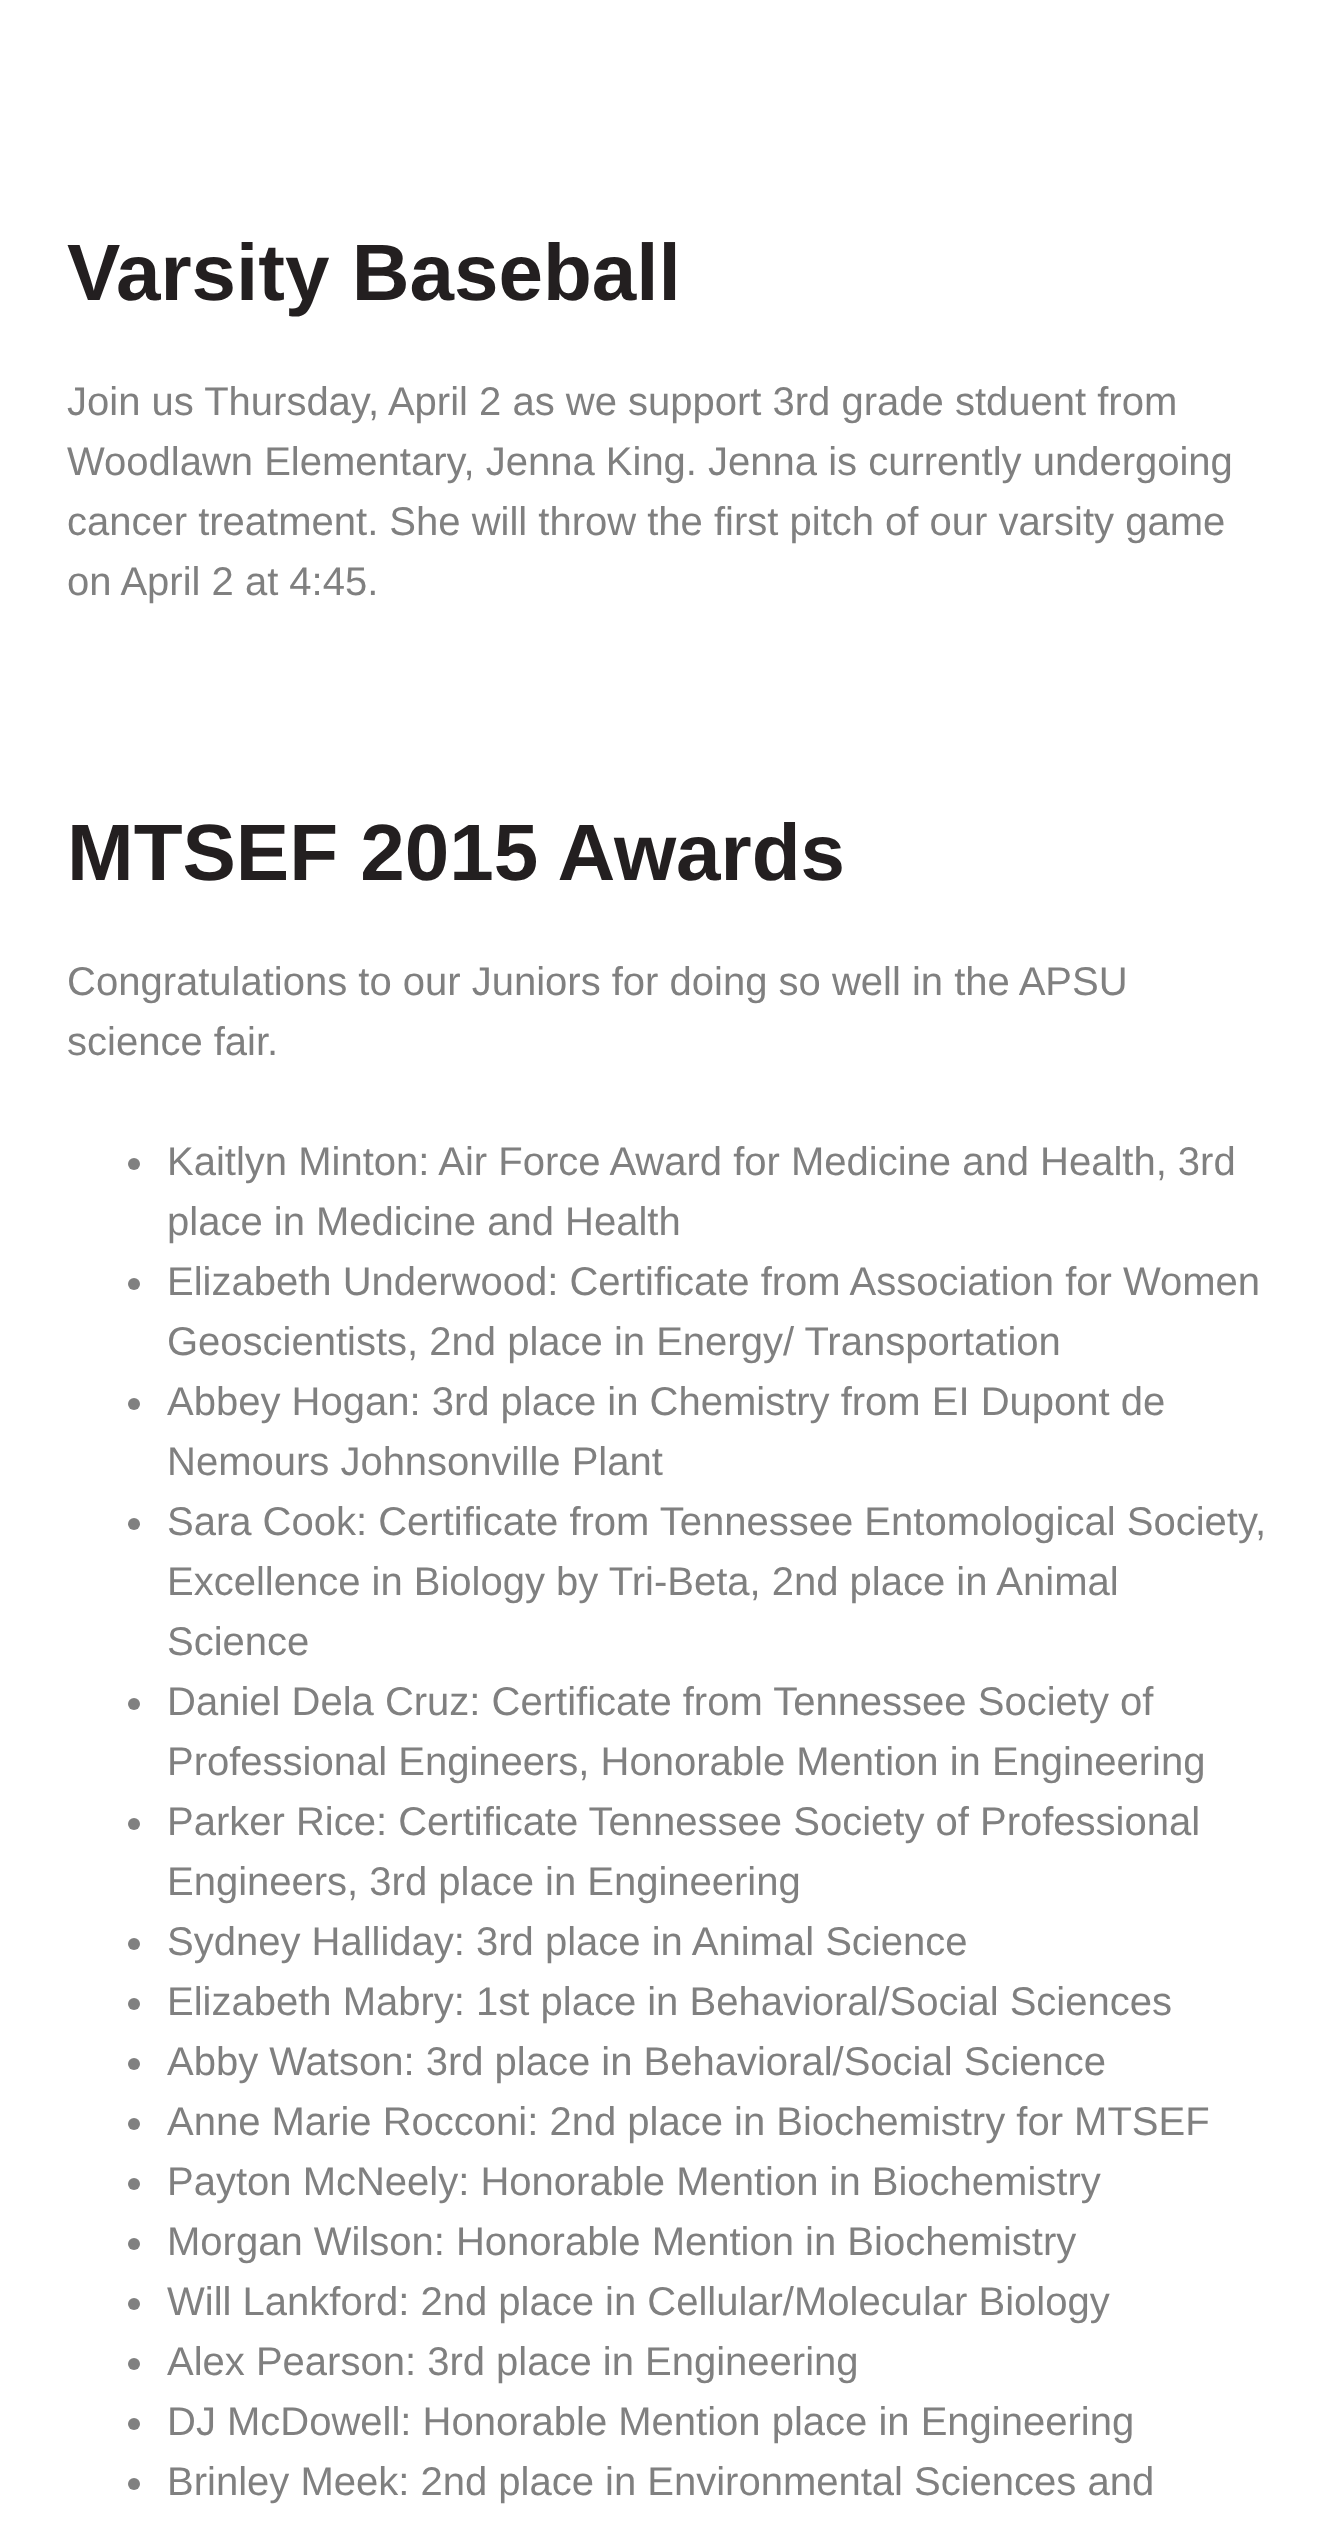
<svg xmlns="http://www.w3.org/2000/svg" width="1332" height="2534">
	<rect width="100%" height="100%" fill="#FFFFFF" />
	<text x="67" y="300" font-family="Liberation Sans" font-size="80" font-weight="700" fill="#231F20">Varsity Baseball</text>
	<g font-family="Liberation Sans" font-size="40" fill="#808080">
		<text x="67" y="415">Join us Thursday, April 2 as we support 3rd grade stduent from</text>
		<text x="67" y="475">Woodlawn Elementary, Jenna King. Jenna is currently undergoing</text>
		<text x="67" y="535">cancer treatment. She will throw the first pitch of our varsity game</text>
		<text x="67" y="595">on April 2 at 4:45.</text>
	</g>
	<text x="67" y="880" font-family="Liberation Sans" font-size="80" font-weight="700" fill="#231F20">MTSEF 2015 Awards</text>
	<g font-family="Liberation Sans" font-size="40" fill="#808080">
		<text x="67" y="995">Congratulations to our Juniors for doing so well in the APSU</text>
		<text x="67" y="1055">science fair.</text>
	</g>
	<circle cx="134" cy="1164" r="6" fill="#808080" />
	<g font-family="Liberation Sans" font-size="40" fill="#808080">
		<text x="167" y="1175">Kaitlyn Minton: Air Force Award for Medicine and Health, 3rd</text>
		<text x="167" y="1235">place in Medicine and Health</text>
	</g>
	<circle cx="134" cy="1284" r="6" fill="#808080" />
	<g font-family="Liberation Sans" font-size="40" fill="#808080">
		<text x="167" y="1295">Elizabeth Underwood: Certificate from Association for Women</text>
		<text x="167" y="1355">Geoscientists, 2nd place in Energy/ Transportation</text>
	</g>
	<circle cx="134" cy="1404" r="6" fill="#808080" />
	<g font-family="Liberation Sans" font-size="40" fill="#808080">
		<text x="167" y="1415">Abbey Hogan: 3rd place in Chemistry from EI Dupont de</text>
		<text x="167" y="1475">Nemours Johnsonville Plant</text>
	</g>
	<circle cx="134" cy="1524" r="6" fill="#808080" />
	<g font-family="Liberation Sans" font-size="40" fill="#808080">
		<text x="167" y="1535">Sara Cook: Certificate from Tennessee Entomological Society,</text>
		<text x="167" y="1595">Excellence in Biology by Tri-Beta, 2nd place in Animal</text>
		<text x="167" y="1655">Science</text>
	</g>
	<circle cx="134" cy="1704" r="6" fill="#808080" />
	<g font-family="Liberation Sans" font-size="40" fill="#808080">
		<text x="167" y="1715">Daniel Dela Cruz: Certificate from Tennessee Society of</text>
		<text x="167" y="1775">Professional Engineers, Honorable Mention in Engineering</text>
	</g>
	<circle cx="134" cy="1824" r="6" fill="#808080" />
	<g font-family="Liberation Sans" font-size="40" fill="#808080">
		<text x="167" y="1835">Parker Rice: Certificate Tennessee Society of Professional</text>
		<text x="167" y="1895">Engineers, 3rd place in Engineering</text>
	</g>
	<circle cx="134" cy="1944" r="6" fill="#808080" />
	<text x="167" y="1955" font-family="Liberation Sans" font-size="40" fill="#808080">Sydney Halliday: 3rd place in Animal Science</text>
	<circle cx="134" cy="2004" r="6" fill="#808080" />
	<text x="167" y="2015" font-family="Liberation Sans" font-size="40" fill="#808080">Elizabeth Mabry: 1st place in Behavioral/Social Sciences</text>
	<circle cx="134" cy="2064" r="6" fill="#808080" />
	<text x="167" y="2075" font-family="Liberation Sans" font-size="40" fill="#808080">Abby Watson: 3rd place in Behavioral/Social Science</text>
	<circle cx="134" cy="2124" r="6" fill="#808080" />
	<text x="167" y="2135" font-family="Liberation Sans" font-size="40" fill="#808080">Anne Marie Rocconi: 2nd place in Biochemistry for MTSEF</text>
	<circle cx="134" cy="2184" r="6" fill="#808080" />
	<text x="167" y="2195" font-family="Liberation Sans" font-size="40" fill="#808080">Payton McNeely: Honorable Mention in Biochemistry</text>
	<circle cx="134" cy="2244" r="6" fill="#808080" />
	<text x="167" y="2255" font-family="Liberation Sans" font-size="40" fill="#808080">Morgan Wilson: Honorable Mention in Biochemistry</text>
	<circle cx="134" cy="2304" r="6" fill="#808080" />
	<text x="167" y="2315" font-family="Liberation Sans" font-size="40" fill="#808080">Will Lankford: 2nd place in Cellular/Molecular Biology</text>
	<circle cx="134" cy="2364" r="6" fill="#808080" />
	<text x="167" y="2375" font-family="Liberation Sans" font-size="40" fill="#808080">Alex Pearson: 3rd place in Engineering</text>
	<circle cx="134" cy="2424" r="6" fill="#808080" />
	<text x="167" y="2435" font-family="Liberation Sans" font-size="40" fill="#808080">DJ McDowell: Honorable Mention place in Engineering</text>
	<circle cx="134" cy="2484" r="6" fill="#808080" />
	<text x="167" y="2495" font-family="Liberation Sans" font-size="40" fill="#808080">Brinley Meek: 2nd place in Environmental Sciences and</text>
</svg>
